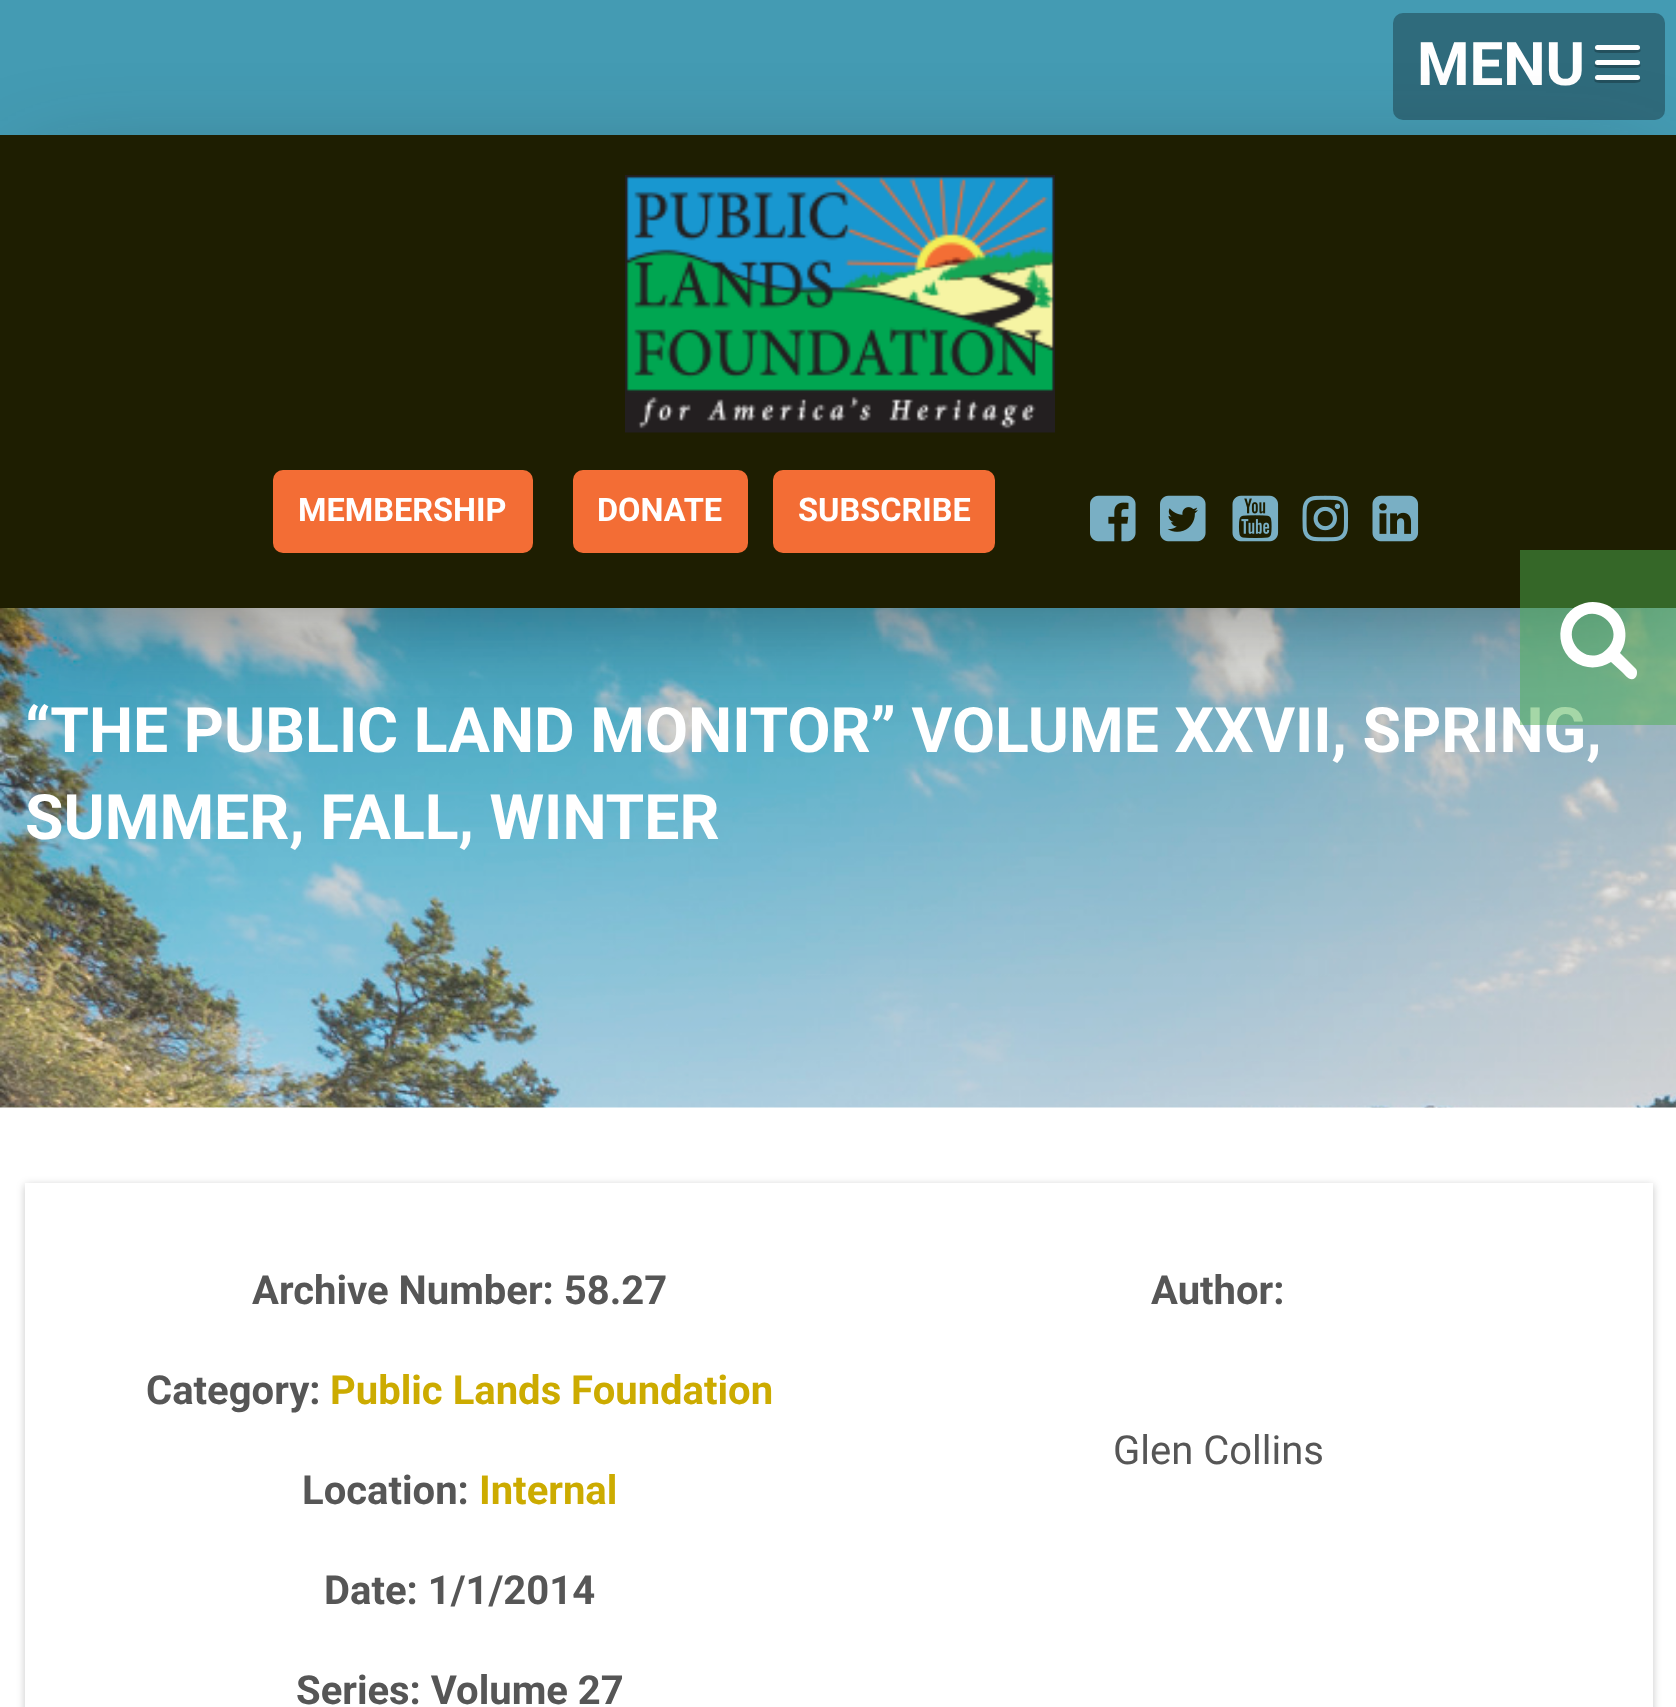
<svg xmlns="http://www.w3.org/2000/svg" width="1676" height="1707">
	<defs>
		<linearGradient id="g1" gradientUnits="userSpaceOnUse" x1="839" y1="607" x2="839" y2="1108"><stop offset="0" stop-color="#6D6D5A" /><stop offset="1" stop-color="#FFFFFF" /></linearGradient>
		<clipPath id="clip1"><path d="M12 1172H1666V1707H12ZM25 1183H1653V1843H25Z" clip-rule="evenodd" /></clipPath>
	</defs>
	<rect width="100%" height="100%" fill="#FFFFFF" />
	<rect x="0" y="0" width="1676" height="135" fill="#449BB3" />
	<rect x="1393" y="13" width="272" height="107" rx="10" fill="#2F6B7C" />
	<text x="1417" y="85" font-family="Roboto" font-size="60" font-weight="700" fill="#FFFFFF">MENU</text>
	<path d="M1595 49C1592 53 1600 53 1604 53H1631C1635 53 1643 53 1640 49L1638 50H1597Z" fill="#23505D" />
	<rect x="1595" y="45" width="45" height="5" rx="2.5" fill="#FFFFFF" />
	<path d="M1595 64C1592 68 1600 68 1604 68H1631C1635 68 1643 68 1640 64L1638 65H1597Z" fill="#23505D" />
	<rect x="1595" y="60" width="45" height="5" rx="2.5" fill="#FFFFFF" />
	<path d="M1595 79C1592 83 1600 83 1604 83H1631C1635 83 1643 83 1640 79L1638 80H1597Z" fill="#23505D" />
	<rect x="1595" y="75" width="45" height="5" rx="2.5" fill="#FFFFFF" />
	<rect x="0" y="608" width="1676" height="492" fill="url(#g1)" />
	<image x="0" y="608" width="1676" height="500" href="assets/img7.png" />
	<rect x="33" y="190" width="1612" height="408" fill="#222222" fill-opacity="0.5" filter="blur(56px)" />
	<rect x="0" y="135" width="1676" height="473" fill="#1E1E01" />
	<image x="625" y="175" width="430" height="258" href="assets/img1.png" />
	<rect x="273" y="470" width="260" height="83" rx="10" fill="#F36D35" />
	<text x="298" y="521" font-family="Roboto" font-size="32.5" font-weight="700" fill="#FFFFFF">MEMBERSHIP</text>
	<rect x="573" y="470" width="175" height="83" rx="10" fill="#F36D35" />
	<text x="597" y="521" font-family="Roboto" font-size="32.5" font-weight="700" fill="#FFFFFF">DONATE</text>
	<rect x="773" y="470" width="222" height="83" rx="10" fill="#F36D35" />
	<text x="798" y="521" font-family="Roboto" font-size="32.5" font-weight="700" fill="#FFFFFF">SUBSCRIBE</text>
	<image x="1090" y="495" width="46" height="47" href="assets/img2.png" />
	<image x="1160" y="495" width="46" height="47" href="assets/img3.png" />
	<image x="1232" y="495" width="47" height="47" href="assets/img4.png" />
	<image x="1302" y="495" width="47" height="47" href="assets/img5.png" />
	<image x="1372" y="495" width="47" height="47" href="assets/img6.png" />
	<text x="25" y="752" font-family="Roboto" font-size="62.5" font-weight="700" fill="#FFFFFF">“THE PUBLIC LAND MONITOR” VOLUME XXVII, SPRING,</text>
	<rect x="1520" y="550" width="156" height="175" fill="#4CAF50" fill-opacity="0.5" />
	<path d="M1607 649C1627 630 1597 601 1578 620C1559 639 1588 669 1607 649ZM1637 673C1637 675 1636 677 1635 678C1630 682 1625 675 1622 672L1611 662C1603 667 1593 669 1583 666C1552 656 1553 611 1585 603C1592 601 1600 602 1607 605C1625 614 1631 637 1620 653L1636 669C1637 670 1637 672 1637 673Z" fill="#FFFFFF" />
	<text x="25" y="839" font-family="Roboto" font-size="62.5" font-weight="700" fill="#FFFFFF">SUMMER, FALL, WINTER</text>
	<g clip-path="url(#clip1)">
		<rect x="25" y="1185" width="1628" height="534" fill="#000000" fill-opacity="0.22" filter="blur(4px)" />
	</g>
	<g font-family="Roboto" font-size="40" font-weight="700" fill="#565656">
		<text x="252" y="1304">Archive Number: 58.27</text>
		<text x="146" y="1404">Category:</text>
	</g>
	<text x="330" y="1404" font-family="Roboto" font-size="40" font-weight="700" fill="#CCAB00">Public Lands Foundation</text>
	<text x="302" y="1504" font-family="Roboto" font-size="40" font-weight="700" fill="#565656">Location:</text>
	<text x="479" y="1504" font-family="Roboto" font-size="40" font-weight="700" fill="#CCAB00">Internal</text>
	<g font-family="Roboto" font-size="40" font-weight="700" fill="#565656">
		<text x="324" y="1604">Date: 1/1/2014</text>
		<text x="296" y="1704">Series: Volume 27</text>
		<text x="1151" y="1304">Author:</text>
	</g>
	<text x="1113" y="1464" font-family="Roboto" font-size="40" fill="#565656">Glen Collins</text>
</svg>
